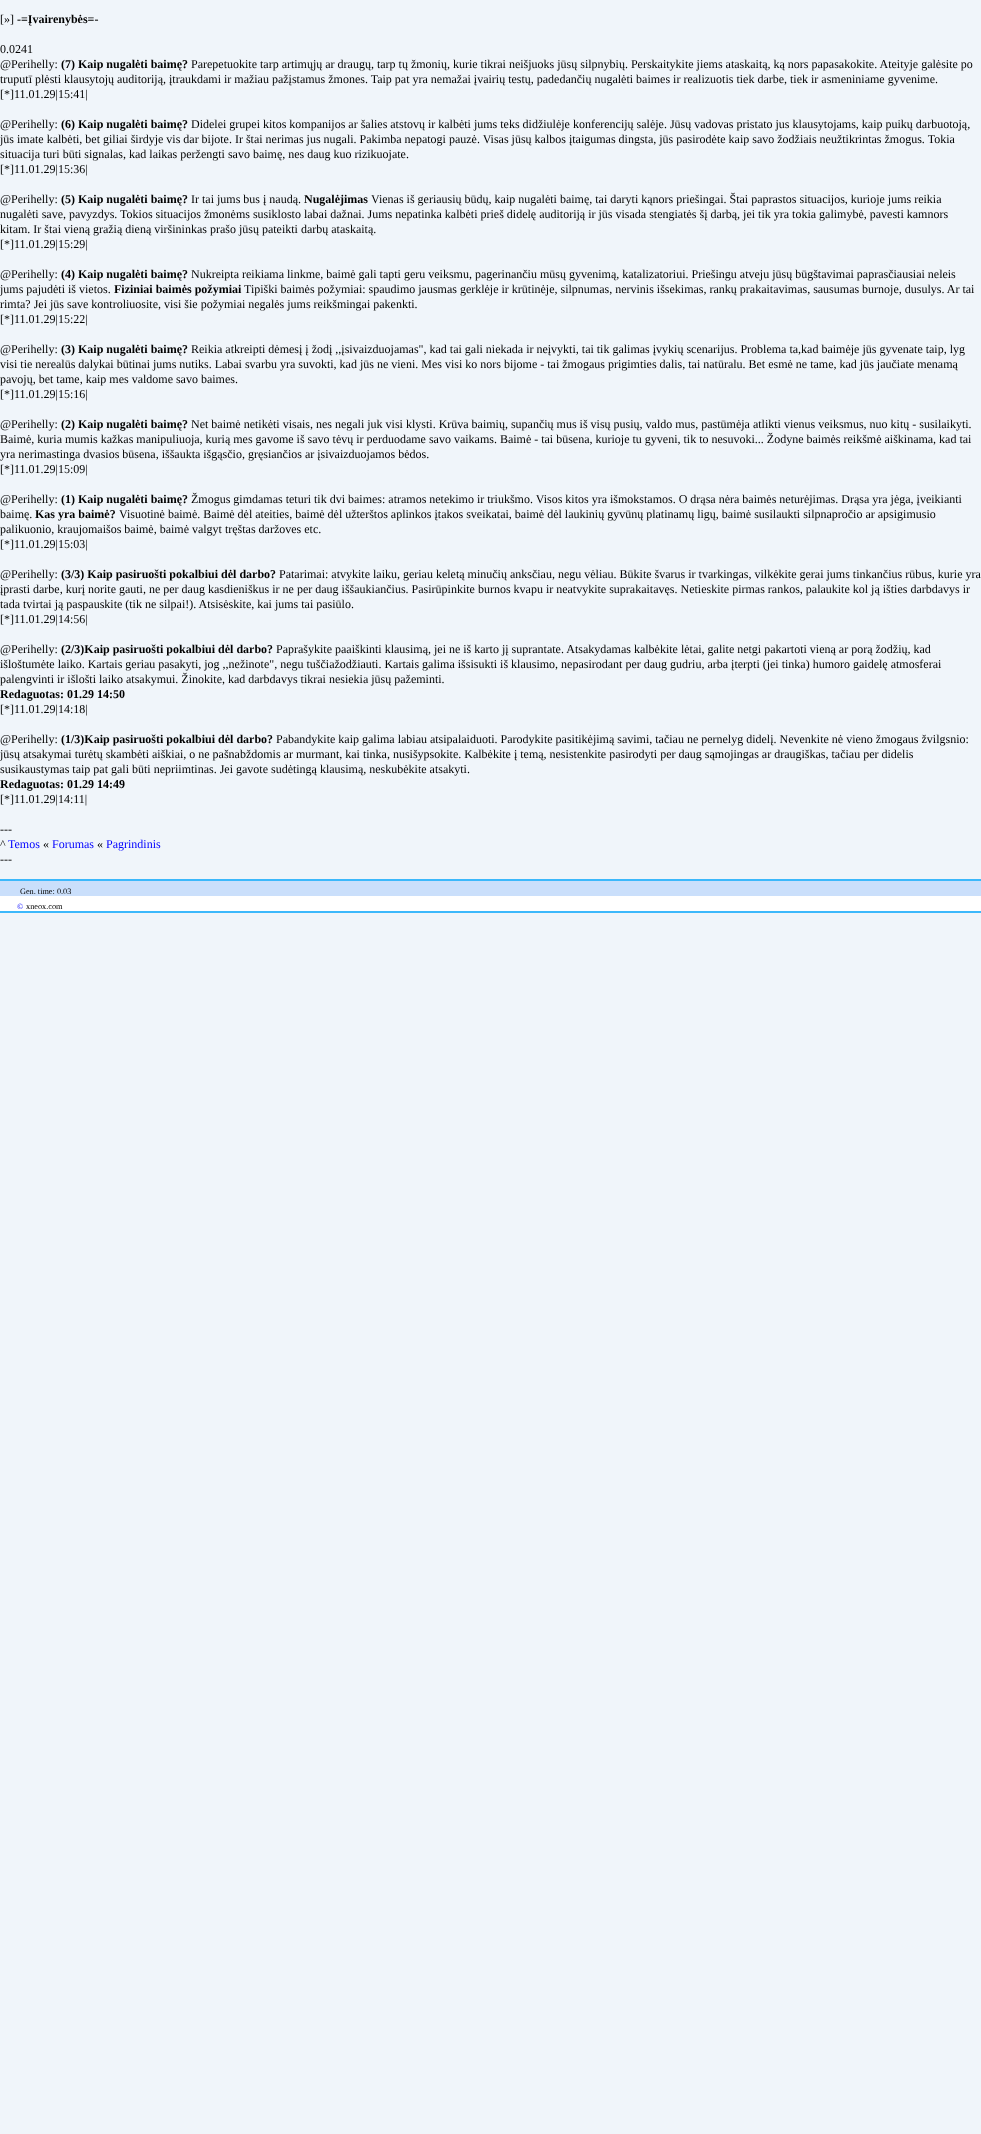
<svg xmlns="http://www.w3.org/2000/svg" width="981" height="2134">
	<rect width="100%" height="100%" fill="#F0F5FA" />
	<text x="0" y="23" font-family="Liberation Serif" font-size="12" fill="#000000">[»]</text>
	<text x="17" y="23" font-family="Liberation Serif" font-size="12" font-weight="700" fill="#000000">-=Įvairenybės=-</text>
	<g font-family="Liberation Serif" font-size="12" fill="#000000">
		<text x="0" y="53">0.0241</text>
		<text x="0" y="68">@Perihelly:</text>
	</g>
	<text x="61" y="68" font-family="Liberation Serif" font-size="12" font-weight="700" fill="#000000">(7) Kaip nugalėti baimę?</text>
	<g font-family="Liberation Serif" font-size="12" fill="#000000">
		<text x="191" y="68">Parepetuokite tarp artimųjų ar draugų, tarp tų žmonių, kurie tikrai neišjuoks jūsų silpnybių. Perskaitykite jiems ataskaitą, ką nors papasakokite. Ateityje galėsite po</text>
		<text x="0" y="83">truputī plėsti klausytojų auditoriją, įtraukdami ir mažiau pažįstamus žmones. Taip pat yra nemažai įvairių testų, padedančių nugalėti baimes ir realizuotis tiek darbe, tiek ir asmeniniame gyvenime.</text>
		<text x="0" y="98">[*]11.01.29|15:41|</text>
		<text x="0" y="128">@Perihelly:</text>
	</g>
	<text x="61" y="128" font-family="Liberation Serif" font-size="12" font-weight="700" fill="#000000">(6) Kaip nugalėti baimę?</text>
	<g font-family="Liberation Serif" font-size="12" fill="#000000">
		<text x="191" y="128">Didelei grupei kitos kompanijos ar šalies atstovų ir kalbėti jums teks didžiulėje konferencijų salėje. Jūsų vadovas pristato jus klausytojams, kaip puikų darbuotoją,</text>
		<text x="0" y="143">jūs imate kalbėti, bet giliai širdyje vis dar bijote. Ir štai nerimas jus nugali. Pakimba nepatogi pauzė. Visas jūsų kalbos įtaigumas dingsta, jūs pasirodėte kaip savo žodžiais neužtikrintas žmogus. Tokia</text>
		<text x="0" y="158">situacija turi būti signalas, kad laikas peržengti savo baimę, nes daug kuo rizikuojate.</text>
		<text x="0" y="173">[*]11.01.29|15:36|</text>
		<text x="0" y="203">@Perihelly:</text>
	</g>
	<text x="61" y="203" font-family="Liberation Serif" font-size="12" font-weight="700" fill="#000000">(5) Kaip nugalėti baimę?</text>
	<text x="191" y="203" font-family="Liberation Serif" font-size="12" fill="#000000">Ir tai jums bus į naudą.</text>
	<text x="304" y="203" font-family="Liberation Serif" font-size="12" font-weight="700" fill="#000000">Nugalėjimas</text>
	<g font-family="Liberation Serif" font-size="12" fill="#000000">
		<text x="371" y="203">Vienas iš geriausių būdų, kaip nugalėti baimę, tai daryti kąnors priešingai. Štai paprastos situacijos, kurioje jums reikia</text>
		<text x="0" y="218">nugalėti save, pavyzdys. Tokios situacijos žmonėms susiklosto labai dažnai. Jums nepatinka kalbėti prieš didelę auditoriją ir jūs visada stengiatės šį darbą, jei tik yra tokia galimybė, pavesti kamnors</text>
		<text x="0" y="233">kitam. Ir štai vieną gražią dieną viršininkas prašo jūsų pateikti darbų ataskaitą.</text>
		<text x="0" y="248">[*]11.01.29|15:29|</text>
		<text x="0" y="278">@Perihelly:</text>
	</g>
	<text x="61" y="278" font-family="Liberation Serif" font-size="12" font-weight="700" fill="#000000">(4) Kaip nugalėti baimę?</text>
	<g font-family="Liberation Serif" font-size="12" fill="#000000">
		<text x="191" y="278">Nukreipta reikiama linkme, baimė gali tapti geru veiksmu, pagerinančiu mūsų gyvenimą, katalizatoriui. Priešingu atveju jūsų būgštavimai paprasčiausiai neleis</text>
		<text x="0" y="293">jums pajudėti iš vietos.</text>
	</g>
	<text x="114" y="293" font-family="Liberation Serif" font-size="12" font-weight="700" fill="#000000">Fiziniai baimės požymiai</text>
	<g font-family="Liberation Serif" font-size="12" fill="#000000">
		<text x="244" y="293">Tipiški baimės požymiai: spaudimo jausmas gerklėje ir krūtinėje, silpnumas, nervinis išsekimas, rankų prakaitavimas, sausumas burnoje, dusulys. Ar tai</text>
		<text x="0" y="308">rimta? Jei jūs save kontroliuosite, visi šie požymiai negalės jums reikšmingai pakenkti.</text>
		<text x="0" y="323">[*]11.01.29|15:22|</text>
		<text x="0" y="353">@Perihelly:</text>
	</g>
	<text x="61" y="353" font-family="Liberation Serif" font-size="12" font-weight="700" fill="#000000">(3) Kaip nugalėti baimę?</text>
	<g font-family="Liberation Serif" font-size="12" fill="#000000">
		<text x="191" y="353">Reikia atkreipti dėmesį į žodį ,,įsivaizduojamas", kad tai gali niekada ir neįvykti, tai tik galimas įvykių scenarijus. Problema ta,kad baimėje jūs gyvenate taip, lyg</text>
		<text x="0" y="368">visi tie nerealūs dalykai būtinai jums nutiks. Labai svarbu yra suvokti, kad jūs ne vieni. Mes visi ko nors bijome - tai žmogaus prigimties dalis, tai natūralu. Bet esmė ne tame, kad jūs jaučiate menamą</text>
		<text x="0" y="383">pavojų, bet tame, kaip mes valdome savo baimes.</text>
		<text x="0" y="398">[*]11.01.29|15:16|</text>
		<text x="0" y="428">@Perihelly:</text>
	</g>
	<text x="61" y="428" font-family="Liberation Serif" font-size="12" font-weight="700" fill="#000000">(2) Kaip nugalėti baimę?</text>
	<g font-family="Liberation Serif" font-size="12" fill="#000000">
		<text x="191" y="428">Net baimė netikėti visais, nes negali juk visi klysti. Krūva baimių, supančių mus iš visų pusių, valdo mus, pastūmėja atlikti vienus veiksmus, nuo kitų - susilaikyti.</text>
		<text x="0" y="443">Baimė, kuria mumis kažkas manipuliuoja, kurią mes gavome iš savo tėvų ir perduodame savo vaikams. Baimė - tai būsena, kurioje tu gyveni, tik to nesuvoki... Žodyne baimės reikšmė aiškinama, kad tai</text>
		<text x="0" y="458">yra nerimastinga dvasios būsena, iššaukta išgąsčio, gręsiančios ar įsivaizduojamos bėdos.</text>
		<text x="0" y="473">[*]11.01.29|15:09|</text>
		<text x="0" y="503">@Perihelly:</text>
	</g>
	<text x="61" y="503" font-family="Liberation Serif" font-size="12" font-weight="700" fill="#000000">(1) Kaip nugalėti baimę?</text>
	<g font-family="Liberation Serif" font-size="12" fill="#000000">
		<text x="191" y="503">Žmogus gimdamas teturi tik dvi baimes: atramos netekimo ir triukšmo. Visos kitos yra išmokstamos. O drąsa nėra baimės neturėjimas. Drąsa yra jėga, įveikianti</text>
		<text x="0" y="518">baimę.</text>
	</g>
	<text x="35" y="518" font-family="Liberation Serif" font-size="12" font-weight="700" fill="#000000">Kas yra baimė?</text>
	<g font-family="Liberation Serif" font-size="12" fill="#000000">
		<text x="119" y="518">Visuotinė baimė. Baimė dėl ateities, baimė dėl užterštos aplinkos įtakos sveikatai, baimė dėl laukinių gyvūnų platinamų ligų, baimė susilaukti silpnapročio ar apsigimusio</text>
		<text x="0" y="533">palikuonio, kraujomaišos baimė, baimė valgyt tręštas daržoves etc.</text>
		<text x="0" y="548">[*]11.01.29|15:03|</text>
		<text x="0" y="578">@Perihelly:</text>
	</g>
	<text x="61" y="578" font-family="Liberation Serif" font-size="12" font-weight="700" fill="#000000">(3/3) Kaip pasiruošti pokalbiui dėl darbo?</text>
	<g font-family="Liberation Serif" font-size="12" fill="#000000">
		<text x="279" y="578">Patarimai: atvykite laiku, geriau keletą minučių anksčiau, negu vėliau. Būkite švarus ir tvarkingas, vilkėkite gerai jums tinkančius rūbus, kurie yra</text>
		<text x="0" y="593">įprasti darbe, kurį norite gauti, ne per daug kasdieniškus ir ne per daug iššaukiančius. Pasirūpinkite burnos kvapu ir neatvykite suprakaitavęs. Netieskite pirmas rankos, palaukite kol ją išties darbdavys ir</text>
		<text x="0" y="608">tada tvirtai ją paspauskite (tik ne silpai!). Atsisėskite, kai jums tai pasiūlo.</text>
		<text x="0" y="623">[*]11.01.29|14:56|</text>
		<text x="0" y="653">@Perihelly:</text>
	</g>
	<text x="61" y="653" font-family="Liberation Serif" font-size="12" font-weight="700" fill="#000000">(2/3)Kaip pasiruošti pokalbiui dėl darbo?</text>
	<g font-family="Liberation Serif" font-size="12" fill="#000000">
		<text x="276" y="653">Paprašykite paaiškinti klausimą, jei ne iš karto jį suprantate. Atsakydamas kalbėkite lėtai, galite netgi pakartoti vieną ar porą žodžių, kad</text>
		<text x="0" y="668">išloštumėte laiko. Kartais geriau pasakyti, jog ,,nežinote", negu tuščiažodžiauti. Kartais galima išsisukti iš klausimo, nepasirodant per daug gudriu, arba įterpti (jei tinka) humoro gaidelę atmosferai</text>
		<text x="0" y="683">palengvinti ir išlošti laiko atsakymui. Žinokite, kad darbdavys tikrai nesiekia jūsų pažeminti.</text>
	</g>
	<text x="0" y="698" font-family="Liberation Serif" font-size="12" font-weight="700" fill="#000000">Redaguotas: 01.29 14:50</text>
	<g font-family="Liberation Serif" font-size="12" fill="#000000">
		<text x="0" y="713">[*]11.01.29|14:18|</text>
		<text x="0" y="743">@Perihelly:</text>
	</g>
	<text x="61" y="743" font-family="Liberation Serif" font-size="12" font-weight="700" fill="#000000">(1/3)Kaip pasiruošti pokalbiui dėl darbo?</text>
	<g font-family="Liberation Serif" font-size="12" fill="#000000">
		<text x="276" y="743">Pabandykite kaip galima labiau atsipalaiduoti. Parodykite pasitikėjimą savimi, tačiau ne pernelyg didelį. Nevenkite nė vieno žmogaus žvilgsnio:</text>
		<text x="0" y="758">jūsų atsakymai turėtų skambėti aiškiai, o ne pašnabždomis ar murmant, kai tinka, nusišypsokite. Kalbėkite į temą, nesistenkite pasirodyti per daug sąmojingas ar draugiškas, tačiau per didelis</text>
		<text x="0" y="773">susikaustymas taip pat gali būti nepriimtinas. Jei gavote sudėtingą klausimą, neskubėkite atsakyti.</text>
	</g>
	<text x="0" y="788" font-family="Liberation Serif" font-size="12" font-weight="700" fill="#000000">Redaguotas: 01.29 14:49</text>
	<g font-family="Liberation Serif" font-size="12" fill="#000000">
		<text x="0" y="803">[*]11.01.29|14:11|</text>
		<text x="0" y="833">---</text>
		<text x="0" y="848">^</text>
	</g>
	<text x="8" y="848" font-family="Liberation Serif" font-size="12" fill="#0000FF">Temos</text>
	<text x="43" y="848" font-family="Liberation Serif" font-size="12" fill="#000000">«</text>
	<text x="52" y="848" font-family="Liberation Serif" font-size="12" fill="#0000FF">Forumas</text>
	<text x="97" y="848" font-family="Liberation Serif" font-size="12" fill="#000000">«</text>
	<text x="106" y="848" font-family="Liberation Serif" font-size="12" fill="#0000FF">Pagrindinis</text>
	<text x="0" y="863" font-family="Liberation Serif" font-size="12" fill="#000000">---</text>
	<rect x="0" y="879" width="981" height="2" fill="#3CB8FB" />
	<rect x="0" y="881" width="981" height="15" fill="#CADFFB" />
	<text x="20" y="894" font-family="Liberation Serif" font-size="8.25" fill="#000000">Gen. time: 0.03</text>
	<rect x="0" y="896" width="981" height="15" fill="#FFFFFF" />
	<text x="17" y="909" font-family="Liberation Serif" font-size="8.25" fill="#0000FF">©</text>
	<text x="26" y="909" font-family="Liberation Serif" font-size="8.25" fill="#000000">xneox.com</text>
	<rect x="0" y="911" width="981" height="2" fill="#3CB8FB" />
</svg>
